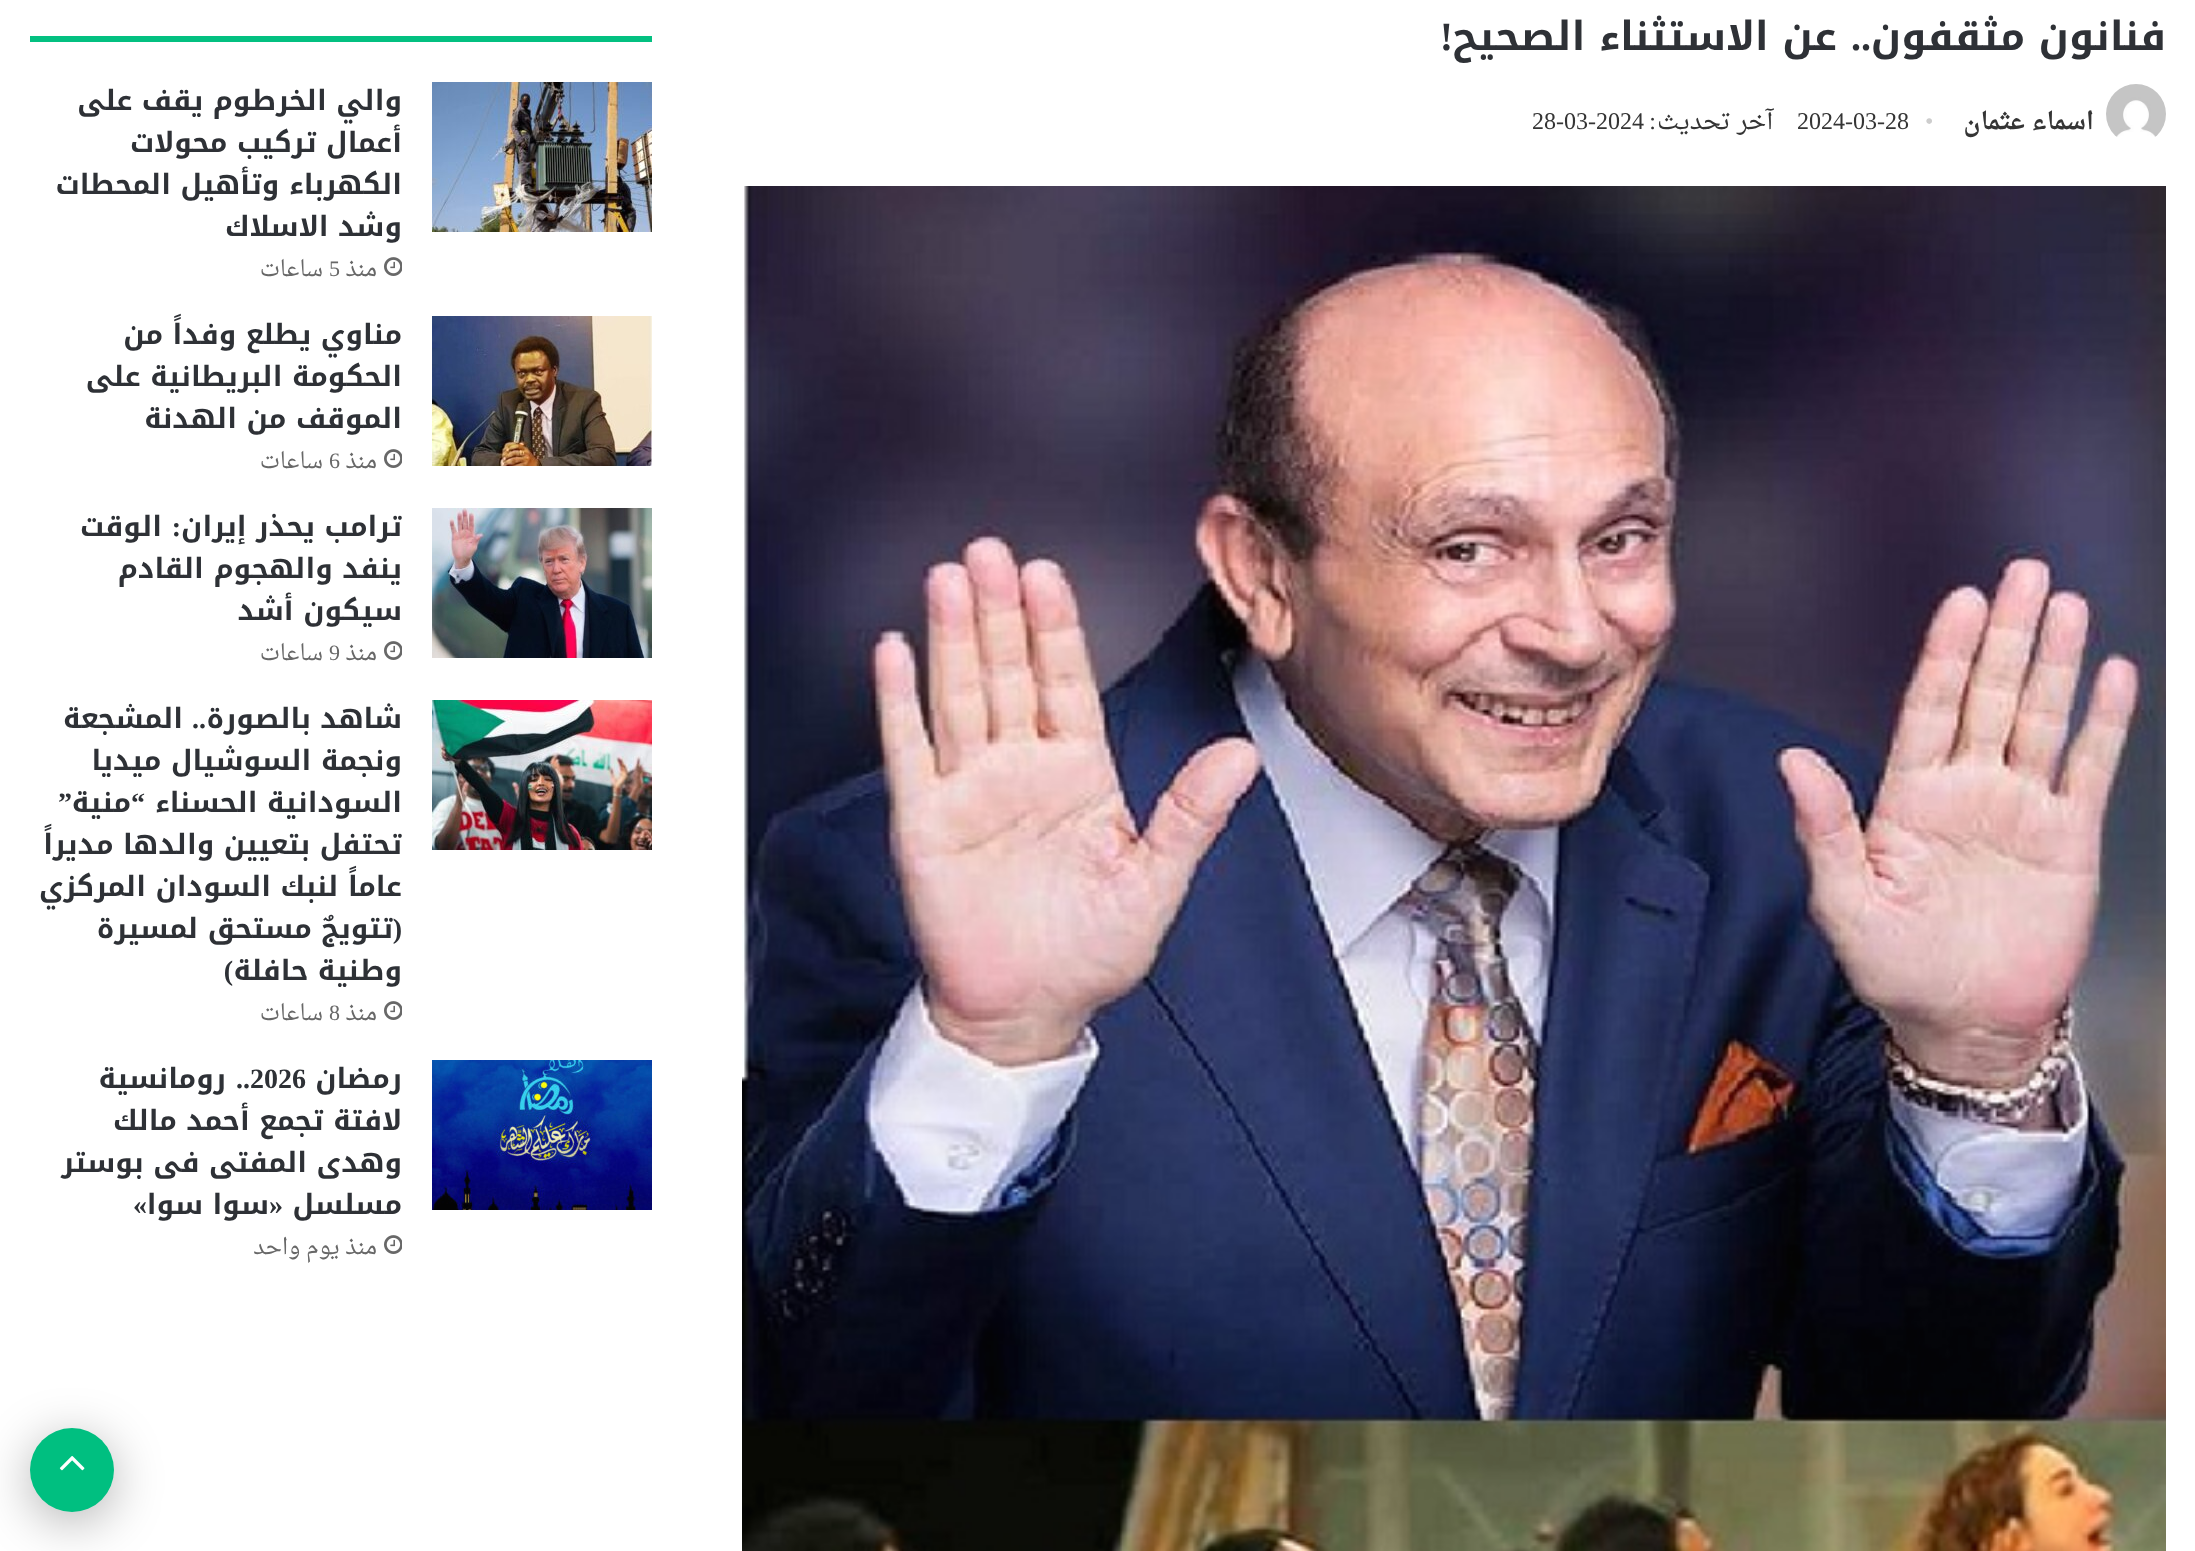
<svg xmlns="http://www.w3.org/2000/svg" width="2195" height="1551">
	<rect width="100%" height="100%" fill="#FFFFFF" />
	<text x="2166" y="50" font-family="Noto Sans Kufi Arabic" font-size="40" font-weight="700" direction="rtl" fill="#2E3136">فنانون مثقفون</text>
	<text x="1871" y="50" font-family="Liberation Serif" font-size="40" font-weight="700" direction="rtl" fill="#2E3136">..</text>
	<text x="1837" y="50" font-family="Noto Sans Kufi Arabic" font-size="40" font-weight="700" direction="rtl" fill="#2E3136">عن الاستثناء الصحيح</text>
	<text x="1453" y="50" font-family="Liberation Serif" font-size="40" font-weight="700" direction="rtl" fill="#2E3136">!</text>
	<image x="2106" y="84" width="60" height="53" href="assets/img1.png" />
	<text x="2094" y="129" font-family="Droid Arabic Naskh" font-size="24" font-weight="700" direction="rtl" fill="#353535">اسماء عثمان</text>
	<text x="1925" y="129" font-family="Liberation Serif" font-size="24" fill="#CDCDCD">•</text>
	<text x="1797" y="129" font-family="Liberation Serif" font-size="24" fill="#353535">2024-03-28</text>
	<text x="1773" y="129" font-family="Droid Arabic Naskh" font-size="24" direction="rtl" fill="#353535">آخر تحديث</text>
	<text x="1656" y="129" font-family="Liberation Serif" font-size="24" direction="rtl" fill="#353535">:</text>
	<text x="1532" y="129" font-family="Liberation Serif" font-size="24" fill="#353535">28-03-2024</text>
	<image x="742" y="186" width="1424" height="1365" href="assets/img2.png" />
	<rect x="30" y="36" width="622" height="6" fill="#03C081" />
	<image x="432" y="82" width="220" height="150" href="assets/img3.png" />
	<g font-family="Noto Sans Kufi Arabic" font-size="28" font-weight="700" direction="rtl" fill="#2E3136">
		<text x="402" y="110">والي الخرطوم يقف على</text>
		<text x="402" y="152">أعمال تركيب محولات</text>
		<text x="402" y="194">الكهرباء وتأهيل المحطات</text>
		<text x="402" y="236">وشد الاسلاك</text>
	</g>
	<image x="384" y="257" width="18" height="19" href="assets/img4.png" />
	<text x="377" y="276" font-family="Droid Arabic Naskh" font-size="22" direction="rtl" fill="#686868">منذ</text>
	<text x="329" y="276" font-family="Liberation Serif" font-size="22" fill="#686868">5</text>
	<text x="323" y="276" font-family="Droid Arabic Naskh" font-size="22" direction="rtl" fill="#686868">ساعات</text>
	<image x="432" y="316" width="220" height="150" href="assets/img5.png" />
	<g font-family="Noto Sans Kufi Arabic" font-size="28" font-weight="700" direction="rtl" fill="#2E3136">
		<text x="402" y="344">مناوي يطلع وفداً من</text>
		<text x="402" y="386">الحكومة البريطانية على</text>
		<text x="402" y="428">الموقف من الهدنة</text>
	</g>
	<image x="384" y="449" width="18" height="19" href="assets/img4.png" />
	<text x="377" y="468" font-family="Droid Arabic Naskh" font-size="22" direction="rtl" fill="#686868">منذ</text>
	<text x="329" y="468" font-family="Liberation Serif" font-size="22" fill="#686868">6</text>
	<text x="323" y="468" font-family="Droid Arabic Naskh" font-size="22" direction="rtl" fill="#686868">ساعات</text>
	<image x="432" y="508" width="220" height="150" href="assets/img6.png" />
	<text x="402" y="536" font-family="Noto Sans Kufi Arabic" font-size="28" font-weight="700" direction="rtl" fill="#2E3136">ترامب يحذر إيران</text>
	<text x="181" y="536" font-family="Liberation Serif" font-size="28" font-weight="700" direction="rtl" fill="#2E3136">:</text>
	<g font-family="Noto Sans Kufi Arabic" font-size="28" font-weight="700" direction="rtl" fill="#2E3136">
		<text x="162" y="536">الوقت</text>
		<text x="402" y="578">ينفد والهجوم القادم</text>
		<text x="402" y="620">سيكون أشد</text>
	</g>
	<image x="384" y="641" width="18" height="19" href="assets/img4.png" />
	<text x="377" y="660" font-family="Droid Arabic Naskh" font-size="22" direction="rtl" fill="#686868">منذ</text>
	<text x="329" y="660" font-family="Liberation Serif" font-size="22" fill="#686868">9</text>
	<text x="323" y="660" font-family="Droid Arabic Naskh" font-size="22" direction="rtl" fill="#686868">ساعات</text>
	<image x="432" y="700" width="220" height="150" href="assets/img7.png" />
	<text x="402" y="728" font-family="Noto Sans Kufi Arabic" font-size="28" font-weight="700" direction="rtl" fill="#2E3136">شاهد بالصورة</text>
	<text x="206" y="728" font-family="Liberation Serif" font-size="28" font-weight="700" direction="rtl" fill="#2E3136">..</text>
	<g font-family="Noto Sans Kufi Arabic" font-size="28" font-weight="700" direction="rtl" fill="#2E3136">
		<text x="183" y="728">المشجعة</text>
		<text x="402" y="770">ونجمة السوشيال ميديا</text>
		<text x="402" y="812">السودانية الحسناء</text>
	</g>
	<text x="145" y="812" font-family="Liberation Serif" font-size="28" font-weight="700" direction="rtl" fill="#2E3136">“</text>
	<text x="131" y="812" font-family="Noto Sans Kufi Arabic" font-size="28" font-weight="700" direction="rtl" fill="#2E3136">منية</text>
	<text x="72" y="812" font-family="Liberation Serif" font-size="28" font-weight="700" direction="rtl" fill="#2E3136">”</text>
	<g font-family="Noto Sans Kufi Arabic" font-size="28" font-weight="700" direction="rtl" fill="#2E3136">
		<text x="402" y="854">تحتفل بتعيين والدها مديراً</text>
		<text x="402" y="896">عاماً لنبك السودان المركزي</text>
	</g>
	<text x="402" y="938" font-family="Liberation Serif" font-size="28" font-weight="700" direction="rtl" fill="#2E3136">(</text>
	<g font-family="Noto Sans Kufi Arabic" font-size="28" font-weight="700" direction="rtl" fill="#2E3136">
		<text x="393" y="938">تتويجٌ مستحق لمسيرة</text>
		<text x="402" y="980">وطنية حافلة</text>
	</g>
	<text x="233" y="980" font-family="Liberation Serif" font-size="28" font-weight="700" direction="rtl" fill="#2E3136">)</text>
	<image x="384" y="1001" width="18" height="19" href="assets/img4.png" />
	<text x="377" y="1020" font-family="Droid Arabic Naskh" font-size="22" direction="rtl" fill="#686868">منذ</text>
	<text x="329" y="1020" font-family="Liberation Serif" font-size="22" fill="#686868">8</text>
	<text x="323" y="1020" font-family="Droid Arabic Naskh" font-size="22" direction="rtl" fill="#686868">ساعات</text>
	<image x="432" y="1060" width="220" height="150" href="assets/img8.png" />
	<text x="402" y="1088" font-family="Noto Sans Kufi Arabic" font-size="28" font-weight="700" direction="rtl" fill="#2E3136">رمضان</text>
	<text x="250" y="1088" font-family="Liberation Serif" font-size="28" font-weight="700" fill="#2E3136">2026</text>
	<text x="250" y="1088" font-family="Liberation Serif" font-size="28" font-weight="700" direction="rtl" fill="#2E3136">..</text>
	<g font-family="Noto Sans Kufi Arabic" font-size="28" font-weight="700" direction="rtl" fill="#2E3136">
		<text x="226" y="1088">رومانسية</text>
		<text x="402" y="1130">لافتة تجمع أحمد مالك</text>
		<text x="402" y="1172">وهدى المفتى فى بوستر</text>
		<text x="402" y="1214">مسلسل</text>
	</g>
	<text x="283" y="1214" font-family="Liberation Serif" font-size="28" font-weight="700" direction="rtl" fill="#2E3136">«</text>
	<text x="269" y="1214" font-family="Noto Sans Kufi Arabic" font-size="28" font-weight="700" direction="rtl" fill="#2E3136">سوا سوا</text>
	<text x="147" y="1214" font-family="Liberation Serif" font-size="28" font-weight="700" direction="rtl" fill="#2E3136">»</text>
	<image x="384" y="1235" width="18" height="19" href="assets/img4.png" />
	<text x="377" y="1254" font-family="Droid Arabic Naskh" font-size="22" direction="rtl" fill="#686868">منذ يوم واحد</text>
	<rect x="30" y="1438" width="84" height="84" rx="42" fill="#000000" fill-opacity="0.3" filter="blur(25px)" />
	<circle cx="72" cy="1470" r="42" fill="#00BF80" />
	<image x="59" y="1456" width="26" height="15" href="assets/img9.png" />
</svg>
